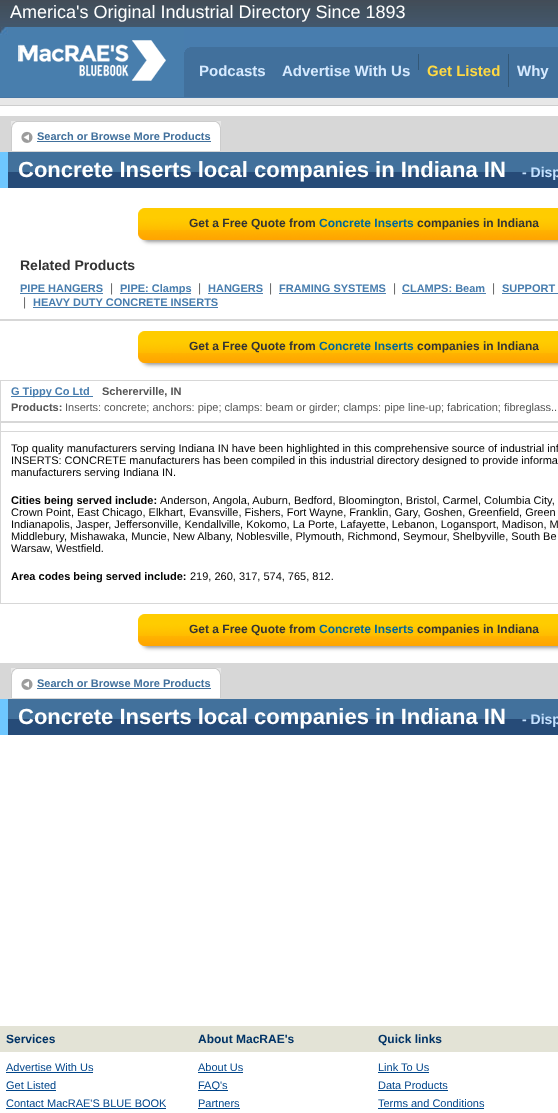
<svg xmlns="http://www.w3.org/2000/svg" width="558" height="1113">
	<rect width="100%" height="100%" fill="#FFFFFF" />
	<image x="0" y="0" width="558" height="106" href="assets/img1.png" />
	<text x="10" y="18" font-family="Liberation Sans" font-size="18" fill="#FFFFFF">America's Original Industrial Directory Since 1893</text>
	<image x="0" y="27" width="184" height="70" href="assets/img2.png" />
	<image x="18" y="40" width="148" height="41" href="assets/img3.png" />
	<rect x="184" y="27" width="374" height="25" fill="#487DAE" />
	<image x="184" y="47" width="7" height="50" href="assets/img4.png" />
	<rect x="191" y="47" width="367" height="50" fill="#41709C" />
	<text x="199" y="76" font-family="Liberation Sans" font-size="15" font-weight="700" fill="#D6EAFF">Podcasts</text>
	<rect x="418" y="54" width="1" height="16" fill="#335877" />
	<text x="282" y="76" font-family="Liberation Sans" font-size="15" font-weight="700" fill="#D6EAFF">Advertise With Us</text>
	<rect x="508" y="54" width="1" height="33" fill="#335877" />
	<text x="427" y="76" font-family="Liberation Sans" font-size="15" font-weight="700" fill="#FFD942">Get Listed</text>
	<text x="517" y="76" font-family="Liberation Sans" font-size="15" font-weight="700" fill="#D6EAFF">Why</text>
	<rect x="0" y="116" width="558" height="36" fill="#D7D7D7" />
	<image x="11" y="121" width="6" height="30" href="assets/img5.png" />
	<image x="17" y="121" width="204" height="30" href="assets/img6.png" />
	<image x="21" y="131" width="12" height="12" href="assets/img7.png" />
	<text x="37" y="140" font-family="Liberation Sans" font-size="11" font-weight="700" fill="#41709C">Search or Browse More Products</text>
	<rect x="37" y="141" width="174" height="1" fill="#41709C" />
	<rect x="8" y="172" width="550" height="16" fill="#264B78" />
	<rect x="8" y="152" width="550" height="20" fill="#42719C" />
	<rect x="0" y="152" width="8" height="36" fill="#6EC7FF" />
	<text x="18" y="177" font-family="Liberation Sans" font-size="22" font-weight="700" fill="#FFFFFF">Concrete Inserts local companies in Indiana IN</text>
	<text x="522" y="177" font-family="Liberation Sans" font-size="14" font-weight="700" fill="#C4E1FF">- Disp</text>
	<image x="138" y="208" width="420" height="22" href="assets/img8.png" />
	<image x="138" y="230" width="420" height="17" href="assets/img9.png" />
	<text x="189" y="227" font-family="Liberation Sans" font-size="12" font-weight="700" fill="#333333">Get a Free Quote from</text>
	<text x="319" y="227" font-family="Liberation Sans" font-size="12" font-weight="700" fill="#006699">Concrete Inserts</text>
	<text x="417" y="227" font-family="Liberation Sans" font-size="12" font-weight="700" fill="#333333">companies in Indiana</text>
	<text x="20" y="270" font-family="Liberation Sans" font-size="14" font-weight="700" fill="#333333">Related Products</text>
	<text x="20" y="292" font-family="Liberation Sans" font-size="11" font-weight="700" fill="#487DAE">PIPE HANGERS</text>
	<rect x="20" y="293" width="83" height="1" fill="#487DAE" />
	<text x="110" y="292" font-family="Liberation Sans" font-size="12" fill="#626262">|</text>
	<rect x="120" y="293" width="71" height="1" fill="#487DAE" />
	<text x="120" y="292" font-family="Liberation Sans" font-size="11" font-weight="700" fill="#487DAE">PIPE: Clamps</text>
	<text x="198" y="292" font-family="Liberation Sans" font-size="12" fill="#626262">|</text>
	<text x="208" y="292" font-family="Liberation Sans" font-size="11" font-weight="700" fill="#487DAE">HANGERS</text>
	<rect x="208" y="293" width="55" height="1" fill="#487DAE" />
	<text x="269" y="292" font-family="Liberation Sans" font-size="12" fill="#626262">|</text>
	<text x="279" y="292" font-family="Liberation Sans" font-size="11" font-weight="700" fill="#487DAE">FRAMING SYSTEMS</text>
	<rect x="279" y="293" width="107" height="1" fill="#487DAE" />
	<text x="393" y="292" font-family="Liberation Sans" font-size="12" fill="#626262">|</text>
	<text x="402" y="292" font-family="Liberation Sans" font-size="11" font-weight="700" fill="#487DAE">CLAMPS: Beam</text>
	<rect x="402" y="293" width="84" height="1" fill="#487DAE" />
	<text x="492" y="292" font-family="Liberation Sans" font-size="12" fill="#626262">|</text>
	<text x="502" y="292" font-family="Liberation Sans" font-size="11" font-weight="700" fill="#487DAE">SUPPORT</text>
	<rect x="502" y="293" width="56" height="1" fill="#487DAE" />
	<text x="23" y="306" font-family="Liberation Sans" font-size="12" fill="#626262">|</text>
	<text x="33" y="306" font-family="Liberation Sans" font-size="11" font-weight="700" fill="#487DAE">HEAVY DUTY CONCRETE INSERTS</text>
	<rect x="33" y="307" width="185" height="1" fill="#487DAE" />
	<rect x="0" y="319" width="558" height="2" fill="#D7D7D7" />
	<image x="138" y="331" width="420" height="22" href="assets/img8.png" />
	<image x="138" y="353" width="420" height="17" href="assets/img9.png" />
	<text x="189" y="350" font-family="Liberation Sans" font-size="12" font-weight="700" fill="#333333">Get a Free Quote from</text>
	<text x="319" y="350" font-family="Liberation Sans" font-size="12" font-weight="700" fill="#006699">Concrete Inserts</text>
	<text x="417" y="350" font-family="Liberation Sans" font-size="12" font-weight="700" fill="#333333">companies in Indiana</text>
	<rect x="0.5" y="380.5" width="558" height="41" fill="none" stroke="#D7D7D7" />
	<rect x="11" y="396" width="82" height="1" fill="#487DAE" />
	<text x="11" y="395" font-family="Liberation Sans" font-size="11" font-weight="700" fill="#487DAE">G Tippy Co Ltd</text>
	<g font-family="Liberation Sans" font-size="11" font-weight="700" fill="#555555">
		<text x="102" y="395">Schererville, IN</text>
		<text x="11" y="411">Products:</text>
	</g>
	<text x="65" y="411" font-family="Liberation Sans" font-size="11" fill="#555555">Inserts: concrete; anchors: pipe; clamps: beam or girder; clamps: pipe line-up; fabrication; fibreglass..</text>
	<rect x="0.5" y="422.5" width="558" height="9" fill="none" stroke="#D7D7D7" />
	<rect x="0" y="603" width="558" height="1" fill="#D7D7D7" />
	<rect x="0" y="432" width="1" height="172" fill="#D7D7D7" />
	<g font-family="Liberation Sans" font-size="11" fill="#000000">
		<text x="11" y="452">Top quality manufacturers serving Indiana IN have been highlighted in this comprehensive source of industrial inf</text>
		<text x="11" y="464">INSERTS: CONCRETE manufacturers has been compiled in this industrial directory designed to provide informa</text>
		<text x="11" y="476">manufacturers serving Indiana IN.</text>
	</g>
	<text x="11" y="504" font-family="Liberation Sans" font-size="11" font-weight="700" fill="#000000">Cities being served include:</text>
	<g font-family="Liberation Sans" font-size="11" fill="#000000">
		<text x="160" y="504">Anderson, Angola, Auburn, Bedford, Bloomington, Bristol, Carmel, Columbia City,</text>
		<text x="11" y="516">Crown Point, East Chicago, Elkhart, Evansville, Fishers, Fort Wayne, Franklin, Gary, Goshen, Greenfield, Green</text>
		<text x="11" y="528">Indianapolis, Jasper, Jeffersonville, Kendallville, Kokomo, La Porte, Lafayette, Lebanon, Logansport, Madison, M</text>
		<text x="11" y="540">Middlebury, Mishawaka, Muncie, New Albany, Noblesville, Plymouth, Richmond, Seymour, Shelbyville, South Be</text>
		<text x="11" y="552">Warsaw, Westfield.</text>
	</g>
	<text x="11" y="580" font-family="Liberation Sans" font-size="11" font-weight="700" fill="#000000">Area codes being served include:</text>
	<text x="190" y="580" font-family="Liberation Sans" font-size="11" fill="#000000">219, 260, 317, 574, 765, 812.</text>
	<image x="138" y="614" width="420" height="22" href="assets/img8.png" />
	<image x="138" y="636" width="420" height="17" href="assets/img9.png" />
	<text x="189" y="633" font-family="Liberation Sans" font-size="12" font-weight="700" fill="#333333">Get a Free Quote from</text>
	<text x="319" y="633" font-family="Liberation Sans" font-size="12" font-weight="700" fill="#006699">Concrete Inserts</text>
	<text x="417" y="633" font-family="Liberation Sans" font-size="12" font-weight="700" fill="#333333">companies in Indiana</text>
	<rect x="0" y="663" width="558" height="36" fill="#D7D7D7" />
	<image x="11" y="668" width="6" height="30" href="assets/img5.png" />
	<image x="17" y="668" width="204" height="30" href="assets/img6.png" />
	<image x="21" y="678" width="12" height="12" href="assets/img7.png" />
	<text x="37" y="687" font-family="Liberation Sans" font-size="11" font-weight="700" fill="#41709C">Search or Browse More Products</text>
	<rect x="37" y="688" width="174" height="1" fill="#41709C" />
	<rect x="8" y="719" width="550" height="16" fill="#264B78" />
	<rect x="8" y="699" width="550" height="20" fill="#42719C" />
	<rect x="0" y="699" width="8" height="36" fill="#6EC7FF" />
	<text x="18" y="724" font-family="Liberation Sans" font-size="22" font-weight="700" fill="#FFFFFF">Concrete Inserts local companies in Indiana IN</text>
	<text x="522" y="724" font-family="Liberation Sans" font-size="14" font-weight="700" fill="#C4E1FF">- Disp</text>
	<rect x="0" y="1026" width="558" height="26" fill="#E3E3D6" />
	<g font-family="Liberation Sans" font-size="12" font-weight="700" fill="#003366">
		<text x="6" y="1043">Services</text>
		<text x="198" y="1043">About MacRAE's</text>
		<text x="378" y="1043">Quick links</text>
	</g>
	<text x="6" y="1071" font-family="Liberation Sans" font-size="11" fill="#00458A">Advertise With Us</text>
	<rect x="6" y="1072" width="87" height="1" fill="#00458A" />
	<text x="6" y="1089" font-family="Liberation Sans" font-size="11" fill="#00458A">Get Listed</text>
	<rect x="6" y="1090" width="50" height="1" fill="#00458A" />
	<text x="6" y="1107" font-family="Liberation Sans" font-size="11" fill="#00458A">Contact MacRAE'S BLUE BOOK</text>
	<rect x="6" y="1108" width="160" height="1" fill="#00458A" />
	<text x="198" y="1071" font-family="Liberation Sans" font-size="11" fill="#00458A">About Us</text>
	<rect x="198" y="1072" width="45" height="1" fill="#00458A" />
	<rect x="198" y="1090" width="30" height="1" fill="#00458A" />
	<g font-family="Liberation Sans" font-size="11" fill="#00458A">
		<text x="198" y="1089">FAQ's</text>
		<text x="198" y="1107">Partners</text>
	</g>
	<rect x="198" y="1108" width="42" height="1" fill="#00458A" />
	<text x="378" y="1071" font-family="Liberation Sans" font-size="11" fill="#00458A">Link To Us</text>
	<rect x="378" y="1072" width="51" height="1" fill="#00458A" />
	<text x="378" y="1089" font-family="Liberation Sans" font-size="11" fill="#00458A">Data Products</text>
	<rect x="378" y="1090" width="70" height="1" fill="#00458A" />
	<text x="378" y="1107" font-family="Liberation Sans" font-size="11" fill="#00458A">Terms and Conditions</text>
	<rect x="378" y="1108" width="106" height="1" fill="#00458A" />
</svg>
